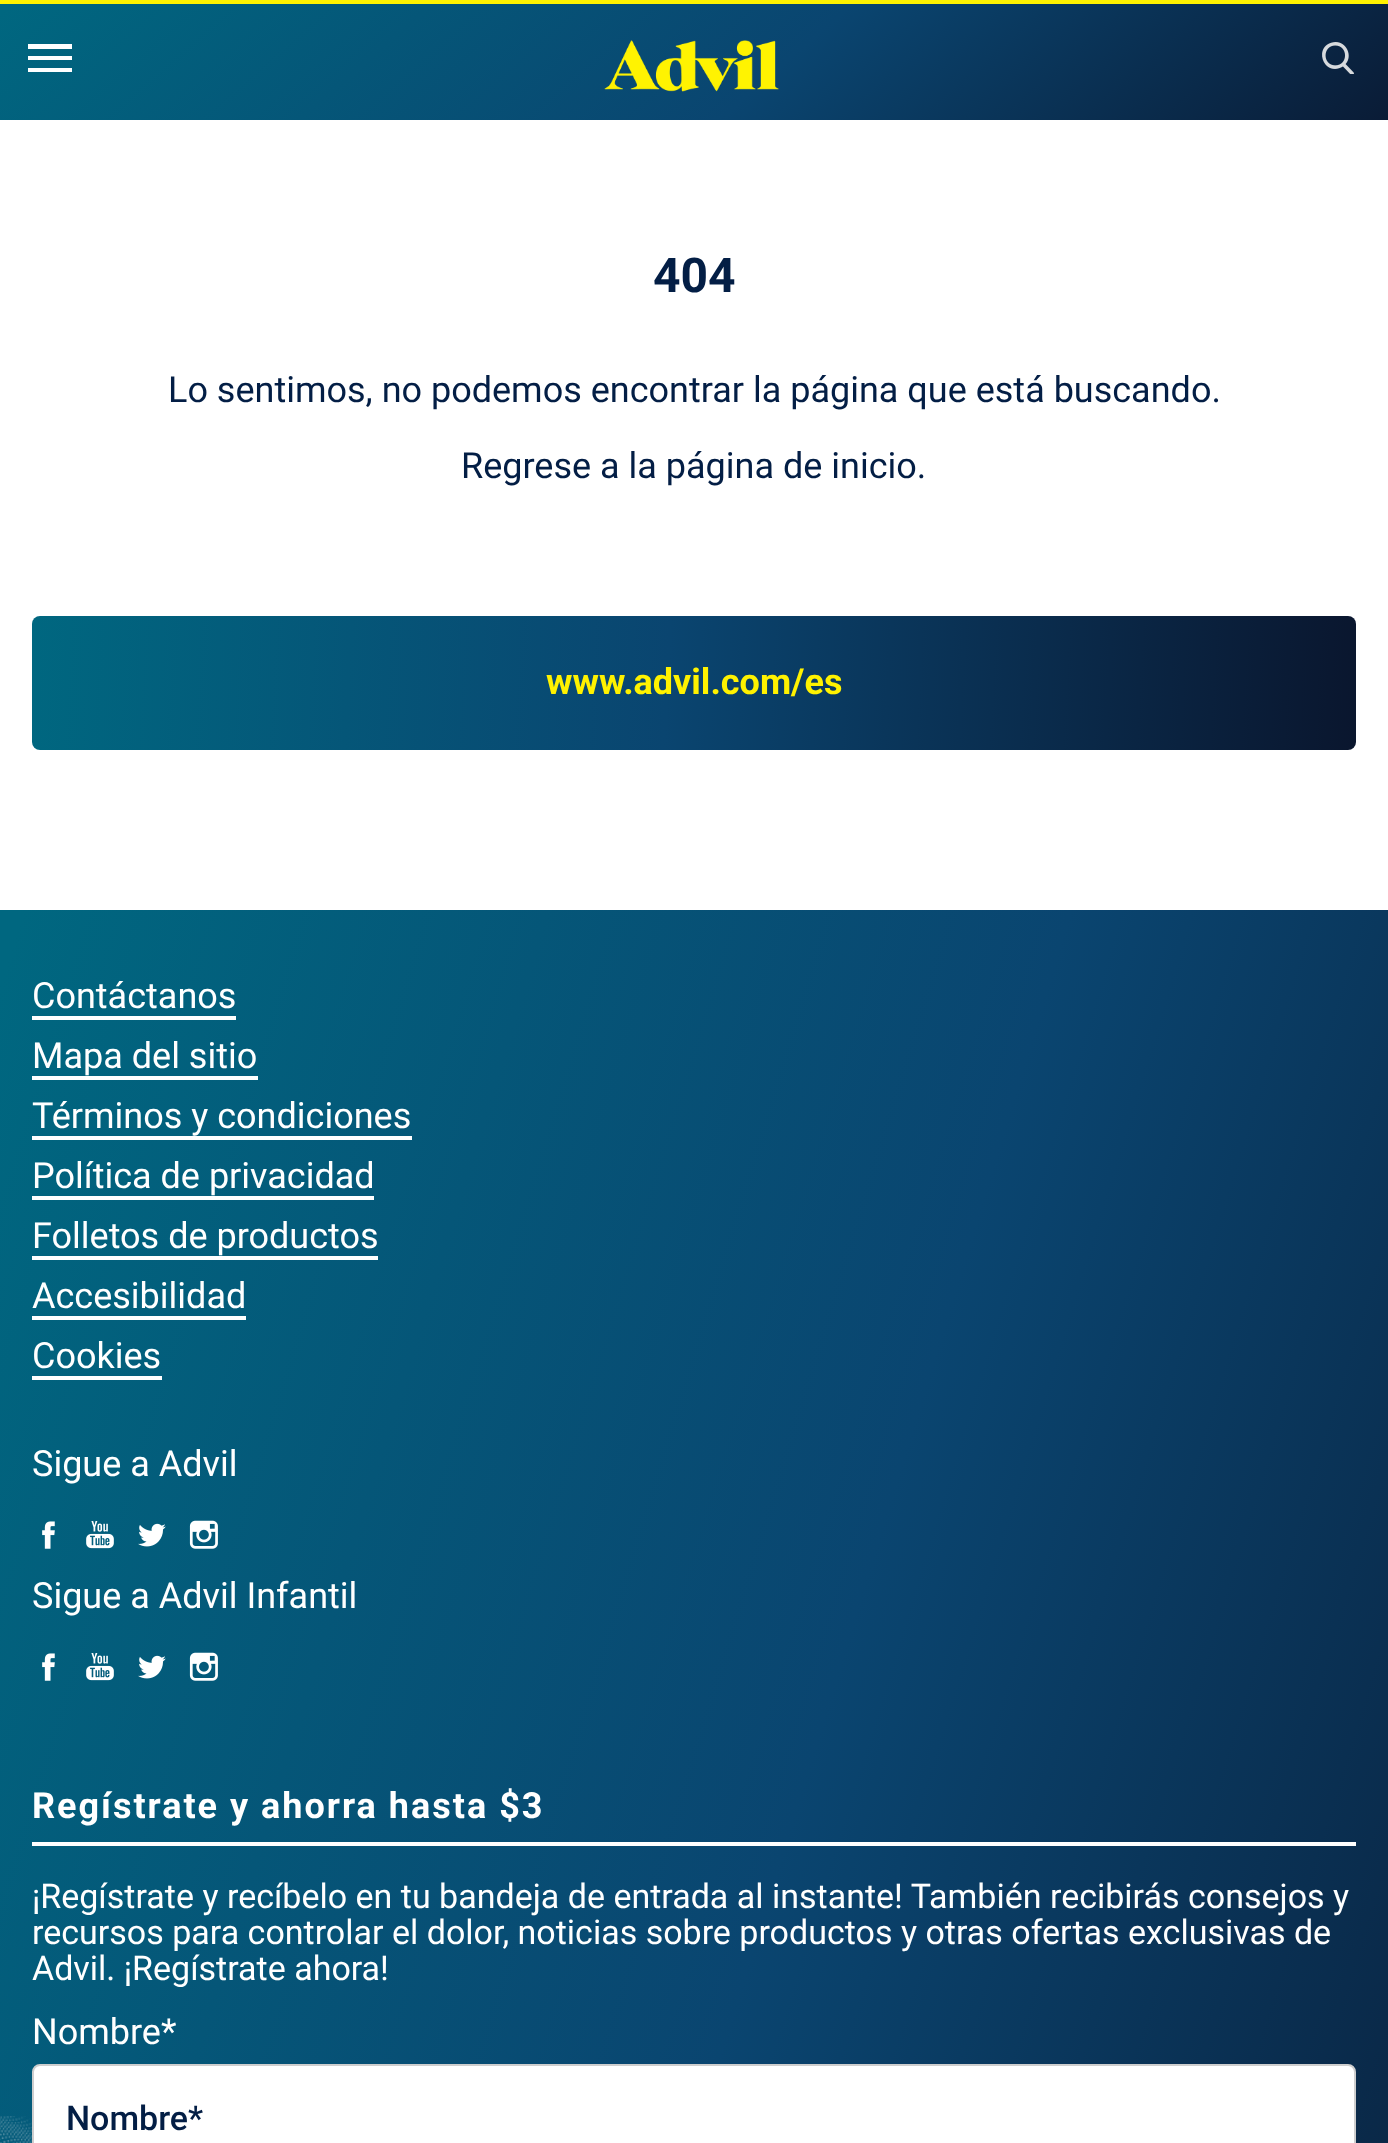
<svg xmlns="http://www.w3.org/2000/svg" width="1388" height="2143">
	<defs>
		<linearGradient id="g1" gradientUnits="userSpaceOnUse" x1="366" y1="-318" x2="1062" y2="483"><stop offset="0.01" stop-color="#006780" /><stop offset="0.53" stop-color="#0A4570" /><stop offset="1" stop-color="#0A162E" /></linearGradient>
		<linearGradient id="g2" gradientUnits="userSpaceOnUse" x1="30" y1="648" x2="1358" y2="718"><stop offset="0" stop-color="#006780" /><stop offset="0.48" stop-color="#0A4570" /><stop offset="1" stop-color="#0A162E" /></linearGradient>
		<linearGradient id="g3" gradientUnits="userSpaceOnUse" x1="-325" y1="1974" x2="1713" y2="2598"><stop offset="0.01" stop-color="#006780" /><stop offset="0.48" stop-color="#0A4570" /><stop offset="0.99" stop-color="#0A162E" /></linearGradient>
	</defs>
	<rect width="100%" height="100%" fill="#FFFFFF" />
	<rect x="0" y="4" width="1388" height="116" fill="url(#g1)" />
	<rect x="0" y="0" width="1388" height="4" fill="#FFF200" />
	<path d="M28 44H72V49H28M28 56H72V60H28M28 68H72V72H28" fill="#FFFFFF" />
	<image x="604" y="40" width="175" height="52" href="assets/img1.png" />
	<image x="1322" y="42" width="32" height="32" href="assets/img2.png" />
	<text x="653" y="292" font-family="Roboto" font-size="48" font-weight="700" fill="#031E45">404</text>
	<g font-family="Roboto" font-size="36" fill="#031E45">
		<text x="168" y="402">Lo sentimos, no podemos encontrar la página que está buscando.</text>
		<text x="461" y="478">Regrese a la página de inicio.</text>
	</g>
	<rect x="32" y="616" width="1324" height="134" rx="8" fill="url(#g2)" />
	<text x="546" y="694" font-family="Roboto" font-size="36" font-weight="700" fill="#FFF200">www.advil.com/es</text>
	<rect x="0" y="910" width="1388" height="1233" fill="url(#g3)" />
	<image x="0" y="2116" width="32" height="27" href="assets/img3.png" />
	<text x="32" y="1008" font-family="Roboto" font-size="36" fill="#FFFFFF">Contáctanos</text>
	<rect x="32" y="1016" width="204" height="4" fill="#FFFFFF" />
	<text x="32" y="1068" font-family="Roboto" font-size="36" fill="#FFFFFF">Mapa del sitio</text>
	<rect x="32" y="1076" width="226" height="4" fill="#FFFFFF" />
	<text x="32" y="1128" font-family="Roboto" font-size="36" fill="#FFFFFF">Términos y condiciones</text>
	<rect x="32" y="1136" width="380" height="4" fill="#FFFFFF" />
	<text x="32" y="1188" font-family="Roboto" font-size="36" fill="#FFFFFF">Política de privacidad</text>
	<rect x="32" y="1196" width="342" height="4" fill="#FFFFFF" />
	<text x="32" y="1248" font-family="Roboto" font-size="36" fill="#FFFFFF">Folletos de productos</text>
	<rect x="32" y="1256" width="346" height="4" fill="#FFFFFF" />
	<text x="32" y="1308" font-family="Roboto" font-size="36" fill="#FFFFFF">Accesibilidad</text>
	<rect x="32" y="1316" width="214" height="4" fill="#FFFFFF" />
	<text x="32" y="1368" font-family="Roboto" font-size="36" fill="#FFFFFF">Cookies</text>
	<rect x="32" y="1376" width="130" height="4" fill="#FFFFFF" />
	<text x="32" y="1476" font-family="Roboto" font-size="36" fill="#FFFFFF">Sigue a Advil</text>
	<image x="42" y="1521" width="13" height="28" href="assets/img4.png" />
	<image x="86" y="1521" width="28" height="28" href="assets/img5.png" />
	<image x="138" y="1523" width="28" height="24" href="assets/img6.png" />
	<image x="189" y="1520" width="29" height="29" href="assets/img7.png" />
	<text x="32" y="1608" font-family="Roboto" font-size="36" fill="#FFFFFF">Sigue a Advil Infantil</text>
	<image x="42" y="1653" width="13" height="28" href="assets/img8.png" />
	<image x="86" y="1653" width="28" height="28" href="assets/img9.png" />
	<image x="138" y="1655" width="28" height="24" href="assets/img10.png" />
	<image x="189" y="1652" width="29" height="29" href="assets/img11.png" />
	<rect x="32" y="1842" width="1324" height="4" fill="#FFFFFF" />
	<text x="32" y="1818" font-family="Roboto" font-size="36" font-weight="700" letter-spacing="2" fill="#FFFFFF">Regístrate y ahorra hasta $3</text>
	<g font-family="Roboto" font-size="34" fill="#FFFFFF">
		<text x="32" y="1908">¡Regístrate y recíbelo en tu bandeja de entrada al instante! También recibirás consejos y</text>
		<text x="32" y="1944">recursos para controlar el dolor, noticias sobre productos y otras ofertas exclusivas de</text>
		<text x="32" y="1980">Advil. ¡Regístrate ahora!</text>
	</g>
	<text x="32" y="2044" font-family="Roboto" font-size="36" fill="#FFFFFF">Nombre*</text>
	<rect x="33" y="2065" width="1322" height="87" rx="7" fill="#FFFFFF" stroke="#CECECE" stroke-width="2" />
	<text x="66" y="2130" font-family="Roboto" font-size="34" font-weight="500" fill="#031E45">Nombre*</text>
</svg>
